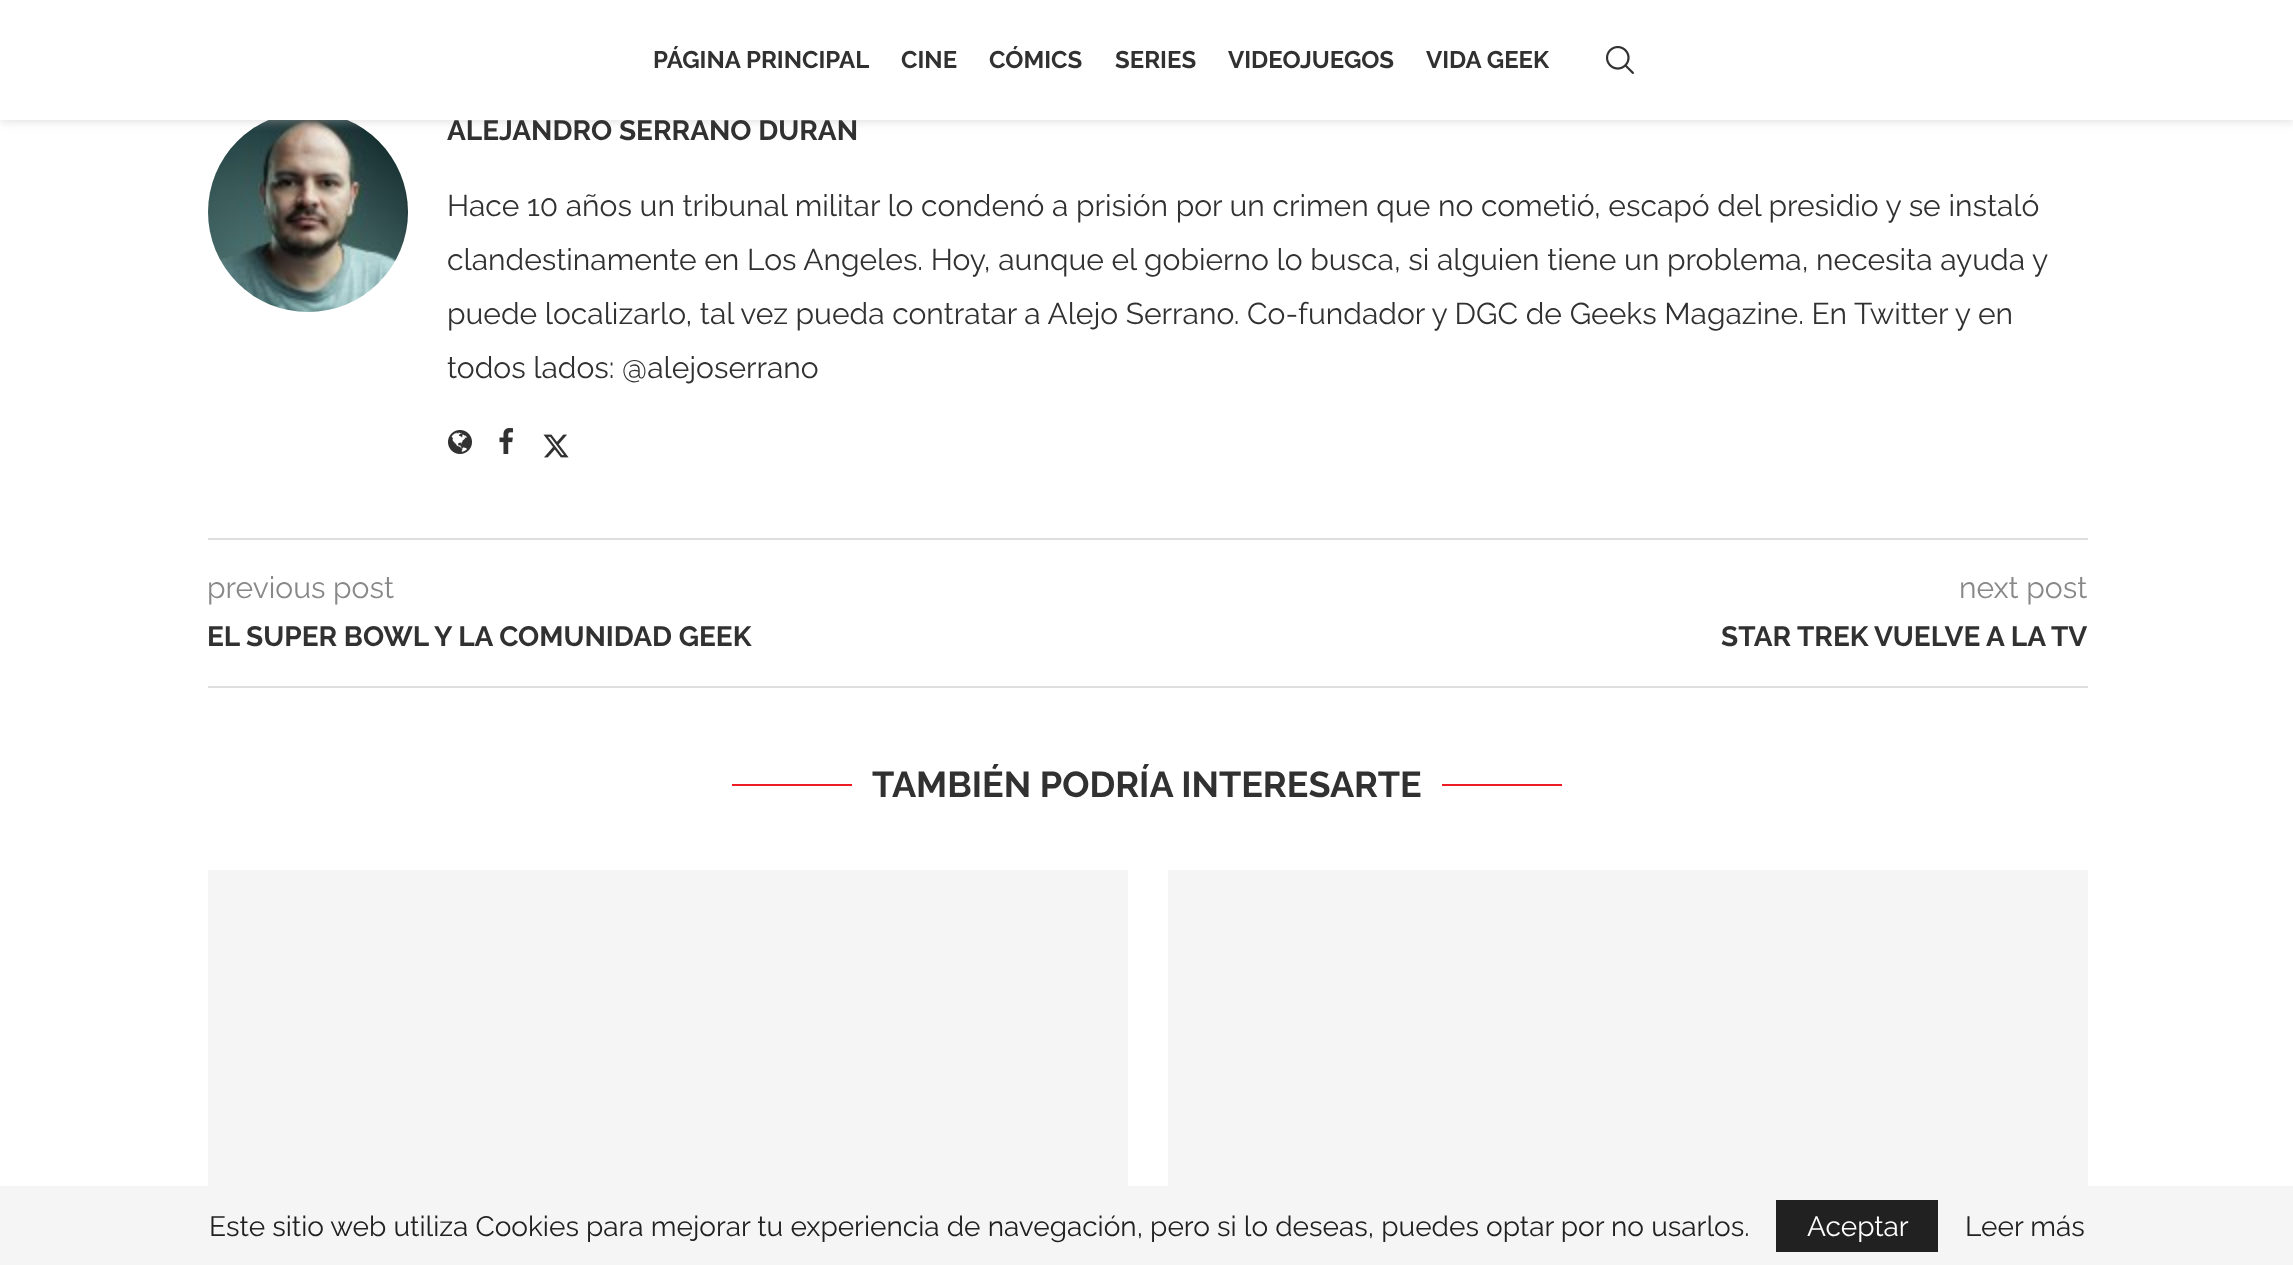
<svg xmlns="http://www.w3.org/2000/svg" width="2293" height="1265">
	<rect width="100%" height="100%" fill="#FFFFFF" />
	<image x="208" y="120" width="200" height="192" href="assets/img2.png" />
	<rect x="0" y="2" width="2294" height="120" fill="#BEBEBE" fill-opacity="0.46" filter="blur(5px)" />
	<text x="447" y="140" font-family="Raleway" font-size="28" font-weight="700" fill="#313131">ALEJANDRO SERRANO DURÁN</text>
	<rect x="0" y="0" width="2293" height="120" fill="#FFFFFF" />
	<g font-family="Raleway" font-size="24" font-weight="700" fill="#313131">
		<text x="653" y="68">PÁGINA PRINCIPAL</text>
		<text x="901" y="68">CINE</text>
		<text x="989" y="68">CÓMICS</text>
		<text x="1115" y="68">SERIES</text>
		<text x="1228" y="68">VIDEOJUEGOS</text>
		<text x="1426" y="68">VIDA GEEK</text>
	</g>
	<image x="1606" y="46" width="28" height="28" href="assets/img1.png" />
	<g font-family="Raleway" font-size="30" fill="#313131">
		<text x="447" y="216">Hace 10 años un tribunal militar lo condenó a prisión por un crimen que no cometió, escapó del presidio y se instaló</text>
		<text x="447" y="270">clandestinamente en Los Angeles. Hoy, aunque el gobierno lo busca, si alguien tiene un problema, necesita ayuda y</text>
		<text x="447" y="324">puede localizarlo, tal vez pueda contratar a Alejo Serrano. Co-fundador y DGC de Geeks Magazine. En Twitter y en</text>
		<text x="447" y="378">todos lados: @alejoserrano</text>
	</g>
	<image x="448" y="430" width="24" height="24" href="assets/img3.png" />
	<image x="499" y="428" width="14" height="26" href="assets/img4.png" />
	<image x="543" y="434" width="26" height="24" href="assets/img5.png" />
	<rect x="208" y="538" width="1880" height="2" fill="#DEDEDE" />
	<text x="207" y="598" font-family="Raleway" font-size="30" fill="#888888">previous post</text>
	<text x="207" y="646" font-family="Raleway" font-size="28" font-weight="700" fill="#313131">EL SUPER BOWL Y LA COMUNIDAD GEEK</text>
	<text x="1959" y="598" font-family="Raleway" font-size="30" fill="#888888">next post</text>
	<text x="1721" y="646" font-family="Raleway" font-size="28" font-weight="700" fill="#313131">STAR TREK VUELVE A LA TV</text>
	<rect x="208" y="686" width="1880" height="2" fill="#DEDEDE" />
	<rect x="732" y="784" width="120" height="2" fill="#ED1C24" />
	<text x="872" y="797" font-family="Raleway" font-size="36" font-weight="700" fill="#313131">TAMBIÉN PODRÍA INTERESARTE</text>
	<rect x="1442" y="784" width="120" height="2" fill="#ED1C24" />
	<rect x="208" y="870" width="920" height="316" fill="#F5F5F5" />
	<rect x="1168" y="870" width="920" height="316" fill="#F5F5F5" />
	<rect x="0" y="1186" width="2293" height="79" fill="#F5F5F5" />
	<text x="209" y="1236" font-family="Raleway" font-size="28" fill="#212121">Este sitio web utiliza Cookies para mejorar tu experiencia de navegación, pero si lo deseas, puedes optar por no usarlos.</text>
	<rect x="1776" y="1200" width="162" height="52" fill="#212121" />
	<text x="1807" y="1236" font-family="Raleway" font-size="28" fill="#FFFFFF">Aceptar</text>
	<text x="1965" y="1236" font-family="Raleway" font-size="28" fill="#212121">Leer más</text>
</svg>
